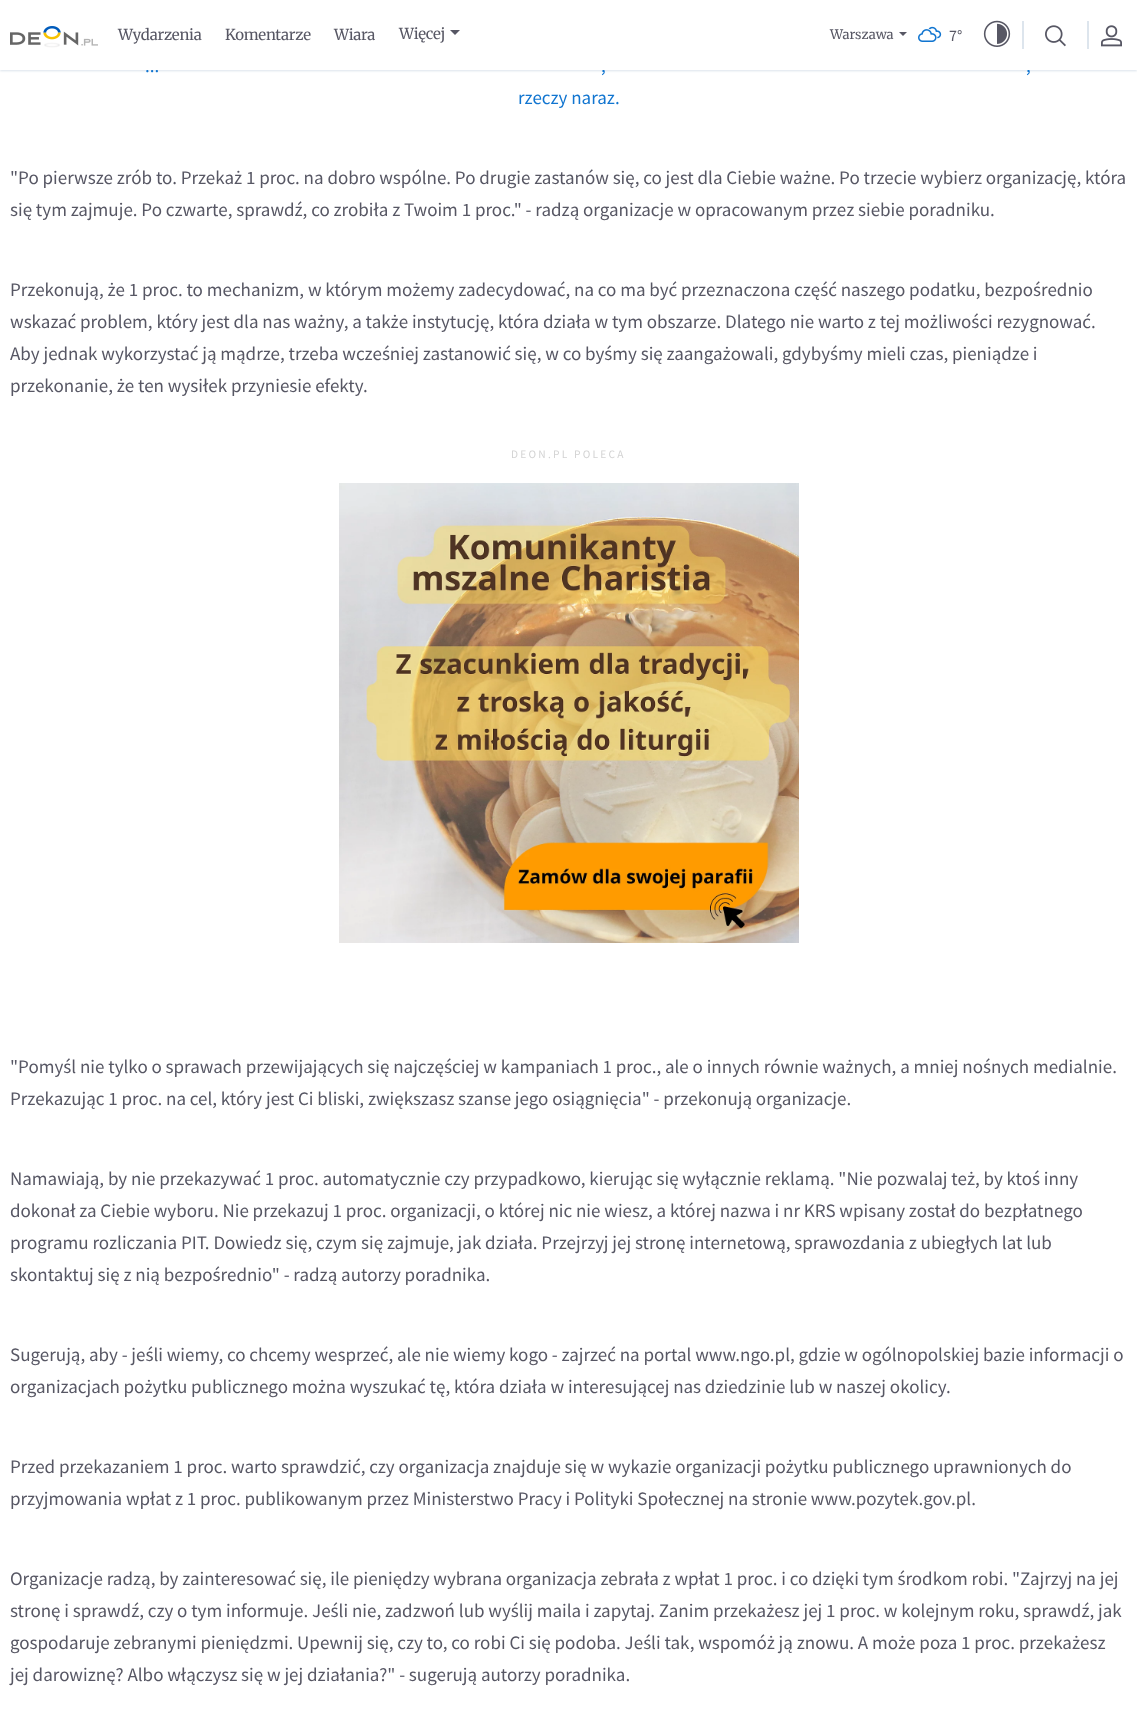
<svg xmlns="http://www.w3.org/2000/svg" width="1137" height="1711">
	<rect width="100%" height="100%" fill="#FFFFFF" />
	<rect x="0" y="1" width="1137" height="70" fill="#DBE3EB" filter="blur(1px)" />
	<g font-family="Source Sans Pro" font-size="19" fill="#1175D0">
		<text x="145" y="72">...</text>
		<text x="601" y="72">,</text>
		<text x="1026" y="72">,</text>
	</g>
	<rect x="0" y="0" width="1137" height="70" fill="#FFFFFF" />
	<image x="10" y="26" width="88" height="22" href="assets/img1.png" />
	<g font-family="Merriweather" font-size="15" letter-spacing="-0.25" fill="#575764">
		<text x="118" y="40">Wydarzenia</text>
		<text x="225" y="40">Komentarze</text>
		<text x="334" y="40">Wiara</text>
		<text x="399" y="39">Więcej</text>
	</g>
	<path d="M460 30L455 35L450 30Z" fill="#575764" />
	<text x="830" y="39" font-family="Merriweather" font-size="13" fill="#575764">Warszawa</text>
	<path d="M907 32L903 36L899 32Z" fill="#575764" />
	<image x="918" y="26" width="24" height="16" href="assets/img2.png" />
	<text x="949" y="41" font-family="Source Sans Pro" font-size="16" fill="#575764">7°</text>
	<image x="983" y="20" width="28" height="27" href="assets/img3.png" />
	<rect x="1022" y="21" width="2" height="28" fill="#DDE5ED" />
	<image x="1045" y="25" width="21" height="22" href="assets/img4.png" />
	<rect x="1087" y="21" width="2" height="28" fill="#DDE5ED" />
	<image x="1101" y="25" width="21" height="22" href="assets/img5.png" />
	<text x="518" y="104" font-family="Source Sans Pro" font-size="19" fill="#1175D0">rzeczy naraz.</text>
	<g font-family="Source Sans Pro" font-size="19" fill="#575764">
		<text x="10" y="184">"Po pierwsze zrób to. Przekaż 1 proc. na dobro wspólne. Po drugie zastanów się, co jest dla Ciebie ważne. Po trzecie wybierz organizację, która</text>
		<text x="10" y="216">się tym zajmuje. Po czwarte, sprawdź, co zrobiła z Twoim 1 proc." - radzą organizacje w opracowanym przez siebie poradniku.</text>
		<text x="10" y="296">Przekonują, że 1 proc. to mechanizm, w którym możemy zadecydować, na co ma być przeznaczona część naszego podatku, bezpośrednio</text>
		<text x="10" y="328">wskazać problem, który jest dla nas ważny, a także instytucję, która działa w tym obszarze. Dlatego nie warto z tej możliwości rezygnować.</text>
		<text x="10" y="360">Aby jednak wykorzystać ją mądrze, trzeba wcześniej zastanowić się, w co byśmy się zaangażowali, gdybyśmy mieli czas, pieniądze i</text>
		<text x="10" y="392">przekonanie, że ten wysiłek przyniesie efekty.</text>
	</g>
	<text x="511" y="458" font-family="Source Sans Pro" font-size="11.4" letter-spacing="2.25" fill="#D3D3D3">DEON.PL POLECA</text>
	<image x="339" y="483" width="460" height="460" href="assets/img6.png" />
	<g font-family="Source Sans Pro" font-size="19" fill="#575764">
		<text x="10" y="1073">"Pomyśl nie tylko o sprawach przewijających się najczęściej w kampaniach 1 proc., ale o innych równie ważnych, a mniej nośnych medialnie.</text>
		<text x="10" y="1105">Przekazując 1 proc. na cel, który jest Ci bliski, zwiększasz szanse jego osiągnięcia" - przekonują organizacje.</text>
		<text x="10" y="1185">Namawiają, by nie przekazywać 1 proc. automatycznie czy przypadkowo, kierując się wyłącznie reklamą. "Nie pozwalaj też, by ktoś inny</text>
		<text x="10" y="1217">dokonał za Ciebie wyboru. Nie przekazuj 1 proc. organizacji, o której nic nie wiesz, a której nazwa i nr KRS wpisany został do bezpłatnego</text>
		<text x="10" y="1249">programu rozliczania PIT. Dowiedz się, czym się zajmuje, jak działa. Przejrzyj jej stronę internetową, sprawozdania z ubiegłych lat lub</text>
		<text x="10" y="1281">skontaktuj się z nią bezpośrednio" - radzą autorzy poradnika.</text>
		<text x="10" y="1361">Sugerują, aby - jeśli wiemy, co chcemy wesprzeć, ale nie wiemy kogo - zajrzeć na portal www.ngo.pl, gdzie w ogólnopolskiej bazie informacji o</text>
		<text x="10" y="1393">organizacjach pożytku publicznego można wyszukać tę, która działa w interesującej nas dziedzinie lub w naszej okolicy.</text>
		<text x="10" y="1473">Przed przekazaniem 1 proc. warto sprawdzić, czy organizacja znajduje się w wykazie organizacji pożytku publicznego uprawnionych do</text>
		<text x="10" y="1505">przyjmowania wpłat z 1 proc. publikowanym przez Ministerstwo Pracy i Polityki Społecznej na stronie www.pozytek.gov.pl.</text>
		<text x="10" y="1585">Organizacje radzą, by zainteresować się, ile pieniędzy wybrana organizacja zebrała z wpłat 1 proc. i co dzięki tym środkom robi. "Zajrzyj na jej</text>
		<text x="10" y="1617">stronę i sprawdź, czy o tym informuje. Jeśli nie, zadzwoń lub wyślij maila i zapytaj. Zanim przekażesz jej 1 proc. w kolejnym roku, sprawdź, jak</text>
		<text x="10" y="1649">gospodaruje zebranymi pieniędzmi. Upewnij się, czy to, co robi Ci się podoba. Jeśli tak, wspomóż ją znowu. A może poza 1 proc. przekażesz</text>
		<text x="10" y="1681">jej darowiznę? Albo włączysz się w jej działania?" - sugerują autorzy poradnika.</text>
	</g>
</svg>
